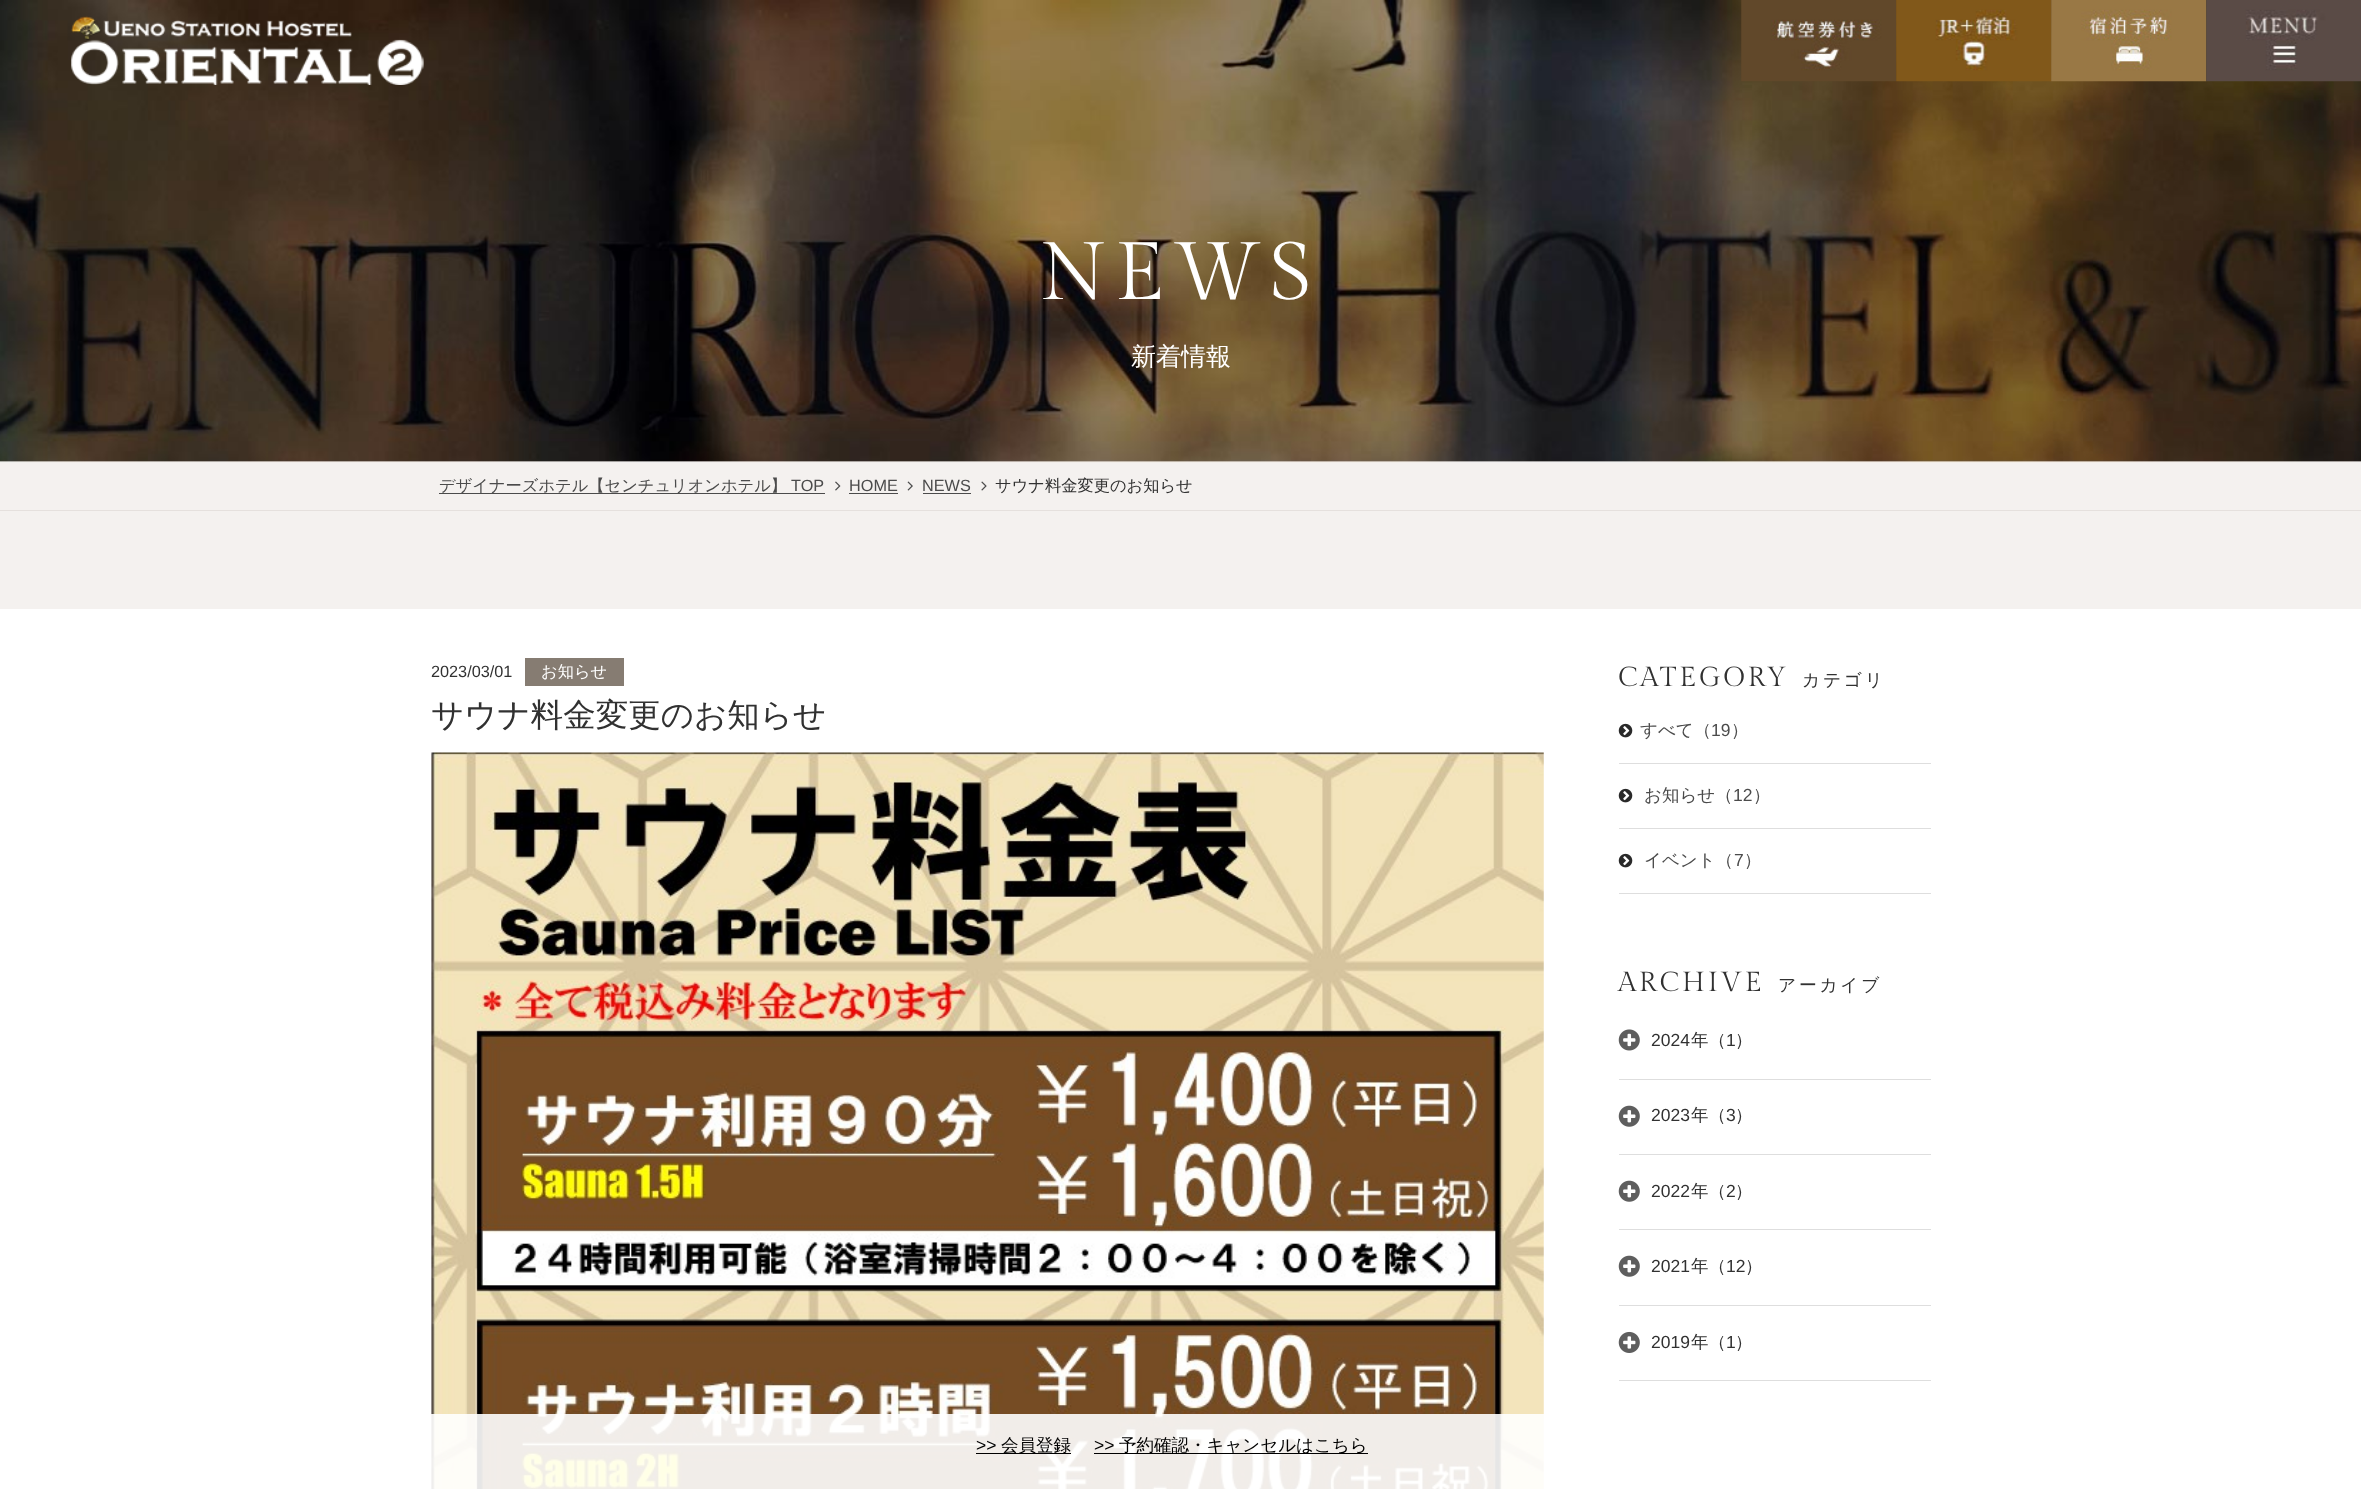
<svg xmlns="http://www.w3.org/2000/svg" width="2361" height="1489">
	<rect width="100%" height="100%" fill="#FFFFFF" />
	<image x="0" y="0" width="2361" height="463" href="assets/img6.png" />
	<image x="71" y="16" width="353" height="69" href="assets/img1.png" />
	<image x="1741" y="0" width="156" height="82" href="assets/img2.png" />
	<image x="1896" y="0" width="156" height="82" href="assets/img3.png" />
	<image x="2051" y="0" width="156" height="82" href="assets/img4.png" />
	<image x="2206" y="0" width="155" height="82" href="assets/img5.png" />
	<text x="1040" y="299" font-family="Gilda Display" font-size="81" letter-spacing="8" fill="#FFFFFF">NEWS</text>
	<text x="1131" y="365" font-family="WenQuanYi Zen Hei" font-size="25" font-weight="500" fill="#FFFFFF">新着情報</text>
	<rect x="0" y="463" width="2361" height="47" fill="#F4F1EF" />
	<rect x="0" y="510" width="2361" height="1" fill="#E5E0DD" />
	<rect x="439" y="493" width="386" height="1" fill="#4B4B4B" />
	<text x="439" y="491" font-family="WenQuanYi Zen Hei" font-size="16.25" font-weight="500" fill="#4B4B4B">デザイナーズホテル【センチュリオンホテル】</text>
	<text x="791" y="491" font-family="Liberation Sans" font-size="16.25" fill="#4B4B4B">TOP</text>
	<image x="835" y="481" width="6" height="10" href="assets/img7.png" />
	<text x="849" y="491" font-family="Liberation Sans" font-size="16.25" fill="#4B4B4B">HOME</text>
	<rect x="849" y="493" width="49" height="1" fill="#4B4B4B" />
	<image x="907" y="481" width="6" height="10" href="assets/img8.png" />
	<text x="922" y="491" font-family="Liberation Sans" font-size="16.25" fill="#4B4B4B">NEWS</text>
	<rect x="923" y="493" width="48" height="1" fill="#4B4B4B" />
	<image x="981" y="481" width="6" height="10" href="assets/img9.png" />
	<text x="995" y="491" font-family="WenQuanYi Zen Hei" font-size="16.25" font-weight="500" fill="#313131">サウナ料金変更のお知らせ</text>
	<rect x="0" y="511" width="2361" height="98" fill="#F4F1EF" />
	<text x="431" y="677" font-family="Liberation Sans" font-size="16.25" fill="#313131">2023/03/01</text>
	<rect x="525" y="658" width="99" height="28" fill="#867C72" />
	<text x="541" y="677" font-family="WenQuanYi Zen Hei" font-size="16.25" font-weight="500" fill="#FFFFFF">お知らせ</text>
	<text x="431" y="726" font-family="WenQuanYi Zen Hei" font-size="32.5" font-weight="500" fill="#313131">サウナ料金変更のお知らせ</text>
	<image x="431" y="752" width="1113" height="737" href="assets/img10.png" />
	<text x="1618" y="686" font-family="Gilda Display" font-size="27.5" letter-spacing="2.75" fill="#313131">CATEGORY</text>
	<text x="1802" y="686" font-family="WenQuanYi Zen Hei" font-size="17.75" font-weight="500" letter-spacing="2.75" fill="#313131">カテゴリ</text>
	<rect x="1619" y="763" width="312" height="1" fill="#DEDEDE" />
	<image x="1618" y="723" width="15" height="15" href="assets/img11.png" />
	<text x="1640" y="736" font-family="WenQuanYi Zen Hei" font-size="17.5" font-weight="500" fill="#4B4B4B">すべて（</text>
	<text x="1711" y="736" font-family="Liberation Sans" font-size="17.5" fill="#4B4B4B">19</text>
	<text x="1731" y="736" font-family="WenQuanYi Zen Hei" font-size="17.5" font-weight="500" fill="#4B4B4B">）</text>
	<rect x="1619" y="828" width="312" height="1" fill="#DEDEDE" />
	<image x="1618" y="788" width="15" height="15" href="assets/img11.png" />
	<text x="1644" y="801" font-family="WenQuanYi Zen Hei" font-size="17.5" font-weight="500" fill="#4B4B4B">お知らせ（</text>
	<text x="1733" y="801" font-family="Liberation Sans" font-size="17.5" fill="#4B4B4B">12</text>
	<text x="1753" y="801" font-family="WenQuanYi Zen Hei" font-size="17.5" font-weight="500" fill="#4B4B4B">）</text>
	<rect x="1619" y="893" width="312" height="1" fill="#DEDEDE" />
	<image x="1618" y="853" width="15" height="15" href="assets/img11.png" />
	<text x="1644" y="866" font-family="WenQuanYi Zen Hei" font-size="17.5" font-weight="500" fill="#4B4B4B">イベント（</text>
	<text x="1734" y="866" font-family="Liberation Sans" font-size="17.5" fill="#4B4B4B">7</text>
	<text x="1744" y="866" font-family="WenQuanYi Zen Hei" font-size="17.5" font-weight="500" fill="#4B4B4B">）</text>
	<text x="1618" y="991" font-family="Gilda Display" font-size="27.5" letter-spacing="2.75" fill="#313131">ARCHIVE</text>
	<text x="1778" y="991" font-family="WenQuanYi Zen Hei" font-size="17.75" font-weight="500" letter-spacing="2.75" fill="#313131">アーカイブ</text>
	<rect x="1619" y="1079" width="312" height="1" fill="#DEDEDE" />
	<image x="1618" y="1029" width="22" height="22" href="assets/img12.png" />
	<text x="1651" y="1046" font-family="Liberation Sans" font-size="17.5" fill="#313131">2024</text>
	<text x="1691" y="1046" font-family="WenQuanYi Zen Hei" font-size="17.5" font-weight="500" fill="#313131">年（</text>
	<text x="1726" y="1046" font-family="Liberation Sans" font-size="17.5" fill="#313131">1</text>
	<text x="1735" y="1046" font-family="WenQuanYi Zen Hei" font-size="17.5" font-weight="500" fill="#313131">）</text>
	<rect x="1619" y="1154" width="312" height="1" fill="#DEDEDE" />
	<image x="1618" y="1105" width="22" height="22" href="assets/img13.png" />
	<text x="1651" y="1121" font-family="Liberation Sans" font-size="17.5" fill="#313131">2023</text>
	<text x="1691" y="1121" font-family="WenQuanYi Zen Hei" font-size="17.5" font-weight="500" fill="#313131">年（</text>
	<text x="1726" y="1121" font-family="Liberation Sans" font-size="17.5" fill="#313131">3</text>
	<text x="1735" y="1121" font-family="WenQuanYi Zen Hei" font-size="17.5" font-weight="500" fill="#313131">）</text>
	<rect x="1619" y="1229" width="312" height="1" fill="#DEDEDE" />
	<image x="1618" y="1180" width="22" height="22" href="assets/img13.png" />
	<text x="1651" y="1197" font-family="Liberation Sans" font-size="17.5" fill="#313131">2022</text>
	<text x="1691" y="1197" font-family="WenQuanYi Zen Hei" font-size="17.5" font-weight="500" fill="#313131">年（</text>
	<text x="1726" y="1197" font-family="Liberation Sans" font-size="17.5" fill="#313131">2</text>
	<text x="1735" y="1197" font-family="WenQuanYi Zen Hei" font-size="17.5" font-weight="500" fill="#313131">）</text>
	<rect x="1619" y="1305" width="312" height="1" fill="#DEDEDE" />
	<image x="1618" y="1255" width="22" height="22" href="assets/img13.png" />
	<text x="1651" y="1272" font-family="Liberation Sans" font-size="17.5" fill="#313131">2021</text>
	<text x="1691" y="1272" font-family="WenQuanYi Zen Hei" font-size="17.5" font-weight="500" fill="#313131">年（</text>
	<text x="1726" y="1272" font-family="Liberation Sans" font-size="17.5" fill="#313131">12</text>
	<text x="1745" y="1272" font-family="WenQuanYi Zen Hei" font-size="17.5" font-weight="500" fill="#313131">）</text>
	<rect x="1619" y="1380" width="312" height="1" fill="#DEDEDE" />
	<image x="1618" y="1331" width="22" height="22" href="assets/img14.png" />
	<text x="1651" y="1348" font-family="Liberation Sans" font-size="17.5" fill="#313131">2019</text>
	<text x="1691" y="1348" font-family="WenQuanYi Zen Hei" font-size="17.5" font-weight="500" fill="#313131">年（</text>
	<text x="1726" y="1348" font-family="Liberation Sans" font-size="17.5" fill="#313131">1</text>
	<text x="1735" y="1348" font-family="WenQuanYi Zen Hei" font-size="17.5" font-weight="500" fill="#313131">）</text>
	<rect x="431" y="1414" width="1113" height="75" fill="#FFFFFF" fill-opacity="0.9" />
	<text x="976" y="1451" font-family="Liberation Sans" font-size="17.5" fill="#000000">&gt;&gt;</text>
	<rect x="976" y="1453" width="95" height="1" fill="#000000" />
	<text x="1001" y="1451" font-family="WenQuanYi Zen Hei" font-size="17.5" font-weight="500" fill="#000000">会員登録</text>
	<text x="1094" y="1451" font-family="Liberation Sans" font-size="17.5" fill="#000000">&gt;&gt;</text>
	<rect x="1094" y="1453" width="274" height="1" fill="#000000" />
	<text x="1119" y="1451" font-family="WenQuanYi Zen Hei" font-size="17.5" font-weight="500" fill="#000000">予約確認・キャンセルはこちら</text>
</svg>
